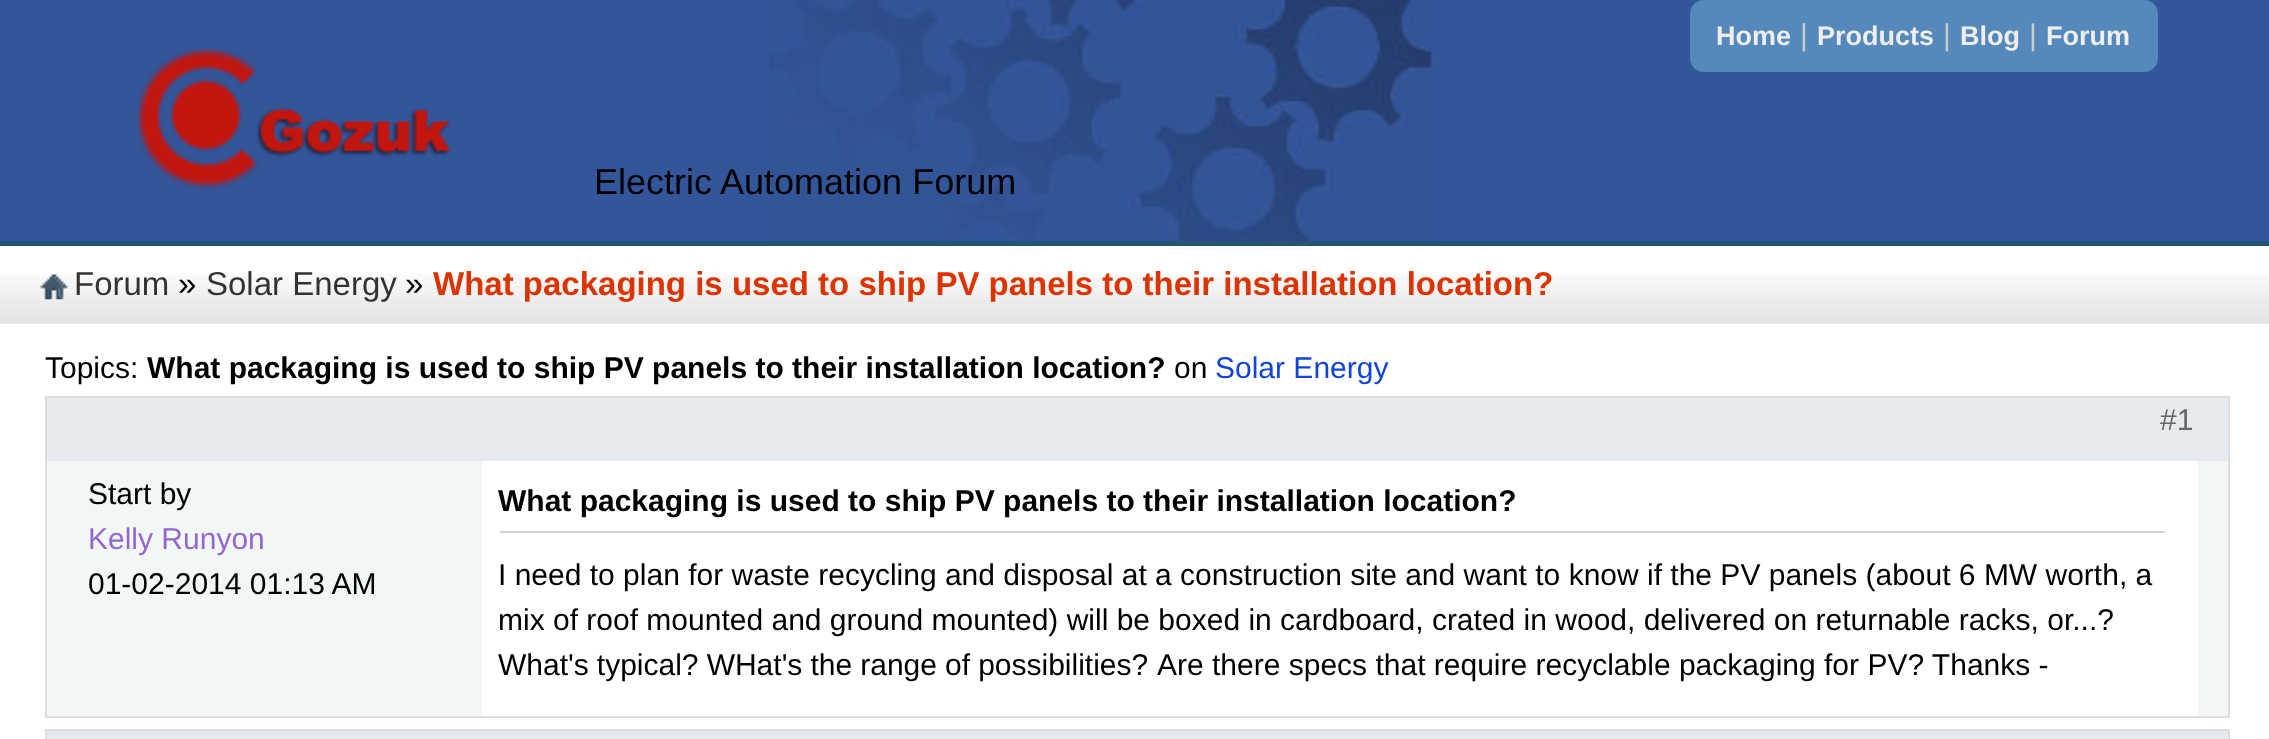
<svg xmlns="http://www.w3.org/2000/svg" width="2269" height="739">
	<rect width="100%" height="100%" fill="#FFFFFF" />
	<rect x="0" y="0" width="2269" height="241" fill="#335599" />
	<image x="769" y="0" width="665" height="241" href="assets/img1.png" />
	<rect x="1690" y="0" width="468" height="72" rx="14" fill="#5588BB" />
	<text x="1716" y="45" font-family="Liberation Sans" font-size="27" font-weight="700" fill="#EEEEEE">Home</text>
	<text x="1800" y="45" font-family="Liberation Sans" font-size="30" fill="#CCCCCC">|</text>
	<text x="1817" y="45" font-family="Liberation Sans" font-size="27" font-weight="700" fill="#EEEEEE">Products</text>
	<text x="1943" y="45" font-family="Liberation Sans" font-size="30" fill="#CCCCCC">|</text>
	<text x="1960" y="45" font-family="Liberation Sans" font-size="27" font-weight="700" fill="#EEEEEE">Blog</text>
	<text x="2029" y="45" font-family="Liberation Sans" font-size="30" fill="#CCCCCC">|</text>
	<text x="2046" y="45" font-family="Liberation Sans" font-size="27" font-weight="700" fill="#EEEEEE">Forum</text>
	<image x="136" y="47" width="315" height="143" href="assets/img2.png" />
	<text x="594" y="194" font-family="Liberation Sans" font-size="36" fill="#000000">Electric Automation Forum</text>
	<image x="0" y="274" width="2269" height="50" href="assets/img3.png" />
	<rect x="0" y="241" width="2269" height="5" fill="#225577" />
	<image x="40" y="274" width="28" height="26" href="assets/img4.png" />
	<text x="74" y="295" font-family="Liberation Sans" font-size="33" fill="#333333">Forum</text>
	<text x="178" y="295" font-family="Liberation Sans" font-size="33" fill="#000000">»</text>
	<text x="206" y="295" font-family="Liberation Sans" font-size="33" fill="#333333">Solar Energy</text>
	<text x="405" y="295" font-family="Liberation Sans" font-size="33" fill="#000000">»</text>
	<text x="433" y="295" font-family="Liberation Sans" font-size="33" font-weight="700" fill="#DD3300">What packaging is used to ship PV panels to their installation location?</text>
	<text x="45" y="378" font-family="Liberation Sans" font-size="30" fill="#000000">Topics:</text>
	<text x="147" y="378" font-family="Liberation Sans" font-size="30" font-weight="700" fill="#000000">What packaging is used to ship PV panels to their installation location?</text>
	<text x="1174" y="378" font-family="Liberation Sans" font-size="30" fill="#000000">on</text>
	<text x="1215" y="378" font-family="Liberation Sans" font-size="30" fill="#1144DD">Solar Energy</text>
	<rect x="47" y="461" width="2181" height="255" fill="#F2F7F5" />
	<rect x="46" y="397" width="2183" height="320" fill="none" stroke="#DDDDDD" stroke-width="2" />
	<rect x="47" y="398" width="2181" height="63" fill="#E5EAEF" />
	<text x="2160" y="430" font-family="Liberation Sans" font-size="30" fill="#666666">#1</text>
	<text x="88" y="504" font-family="Liberation Sans" font-size="30" fill="#000000">Start by</text>
	<text x="88" y="549" font-family="Liberation Sans" font-size="30" fill="#9367D2">Kelly Runyon</text>
	<text x="88" y="594" font-family="Liberation Sans" font-size="30" fill="#000000">01-02-2014 01:13 AM</text>
	<rect x="482" y="461" width="1716" height="255" fill="#FFFFFF" />
	<rect x="500" y="531" width="1665" height="2" fill="#D2D2D2" />
	<text x="498" y="511" font-family="Liberation Sans" font-size="30" font-weight="700" fill="#000000">What packaging is used to ship PV panels to their installation location?</text>
	<g font-family="Liberation Sans" font-size="30" fill="#000000">
		<text x="498" y="585">I need to plan for waste recycling and disposal at a construction site and want to know if the PV panels (about 6 MW worth, a</text>
		<text x="498" y="630">mix of roof mounted and ground mounted) will be boxed in cardboard, crated in wood, delivered on returnable racks, or...?</text>
		<text x="498" y="675" word-spacing="-0.25">What's typical? WHat's the range of possibilities?</text>
		<text x="1157" y="675">Are there specs that require recyclable packaging for PV? Thanks -</text>
	</g>
	<rect x="46" y="730" width="2183" height="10" fill="none" stroke="#DDDDDD" stroke-width="2" />
	<rect x="47" y="731" width="2181" height="8" fill="#E5EAEF" />
</svg>
